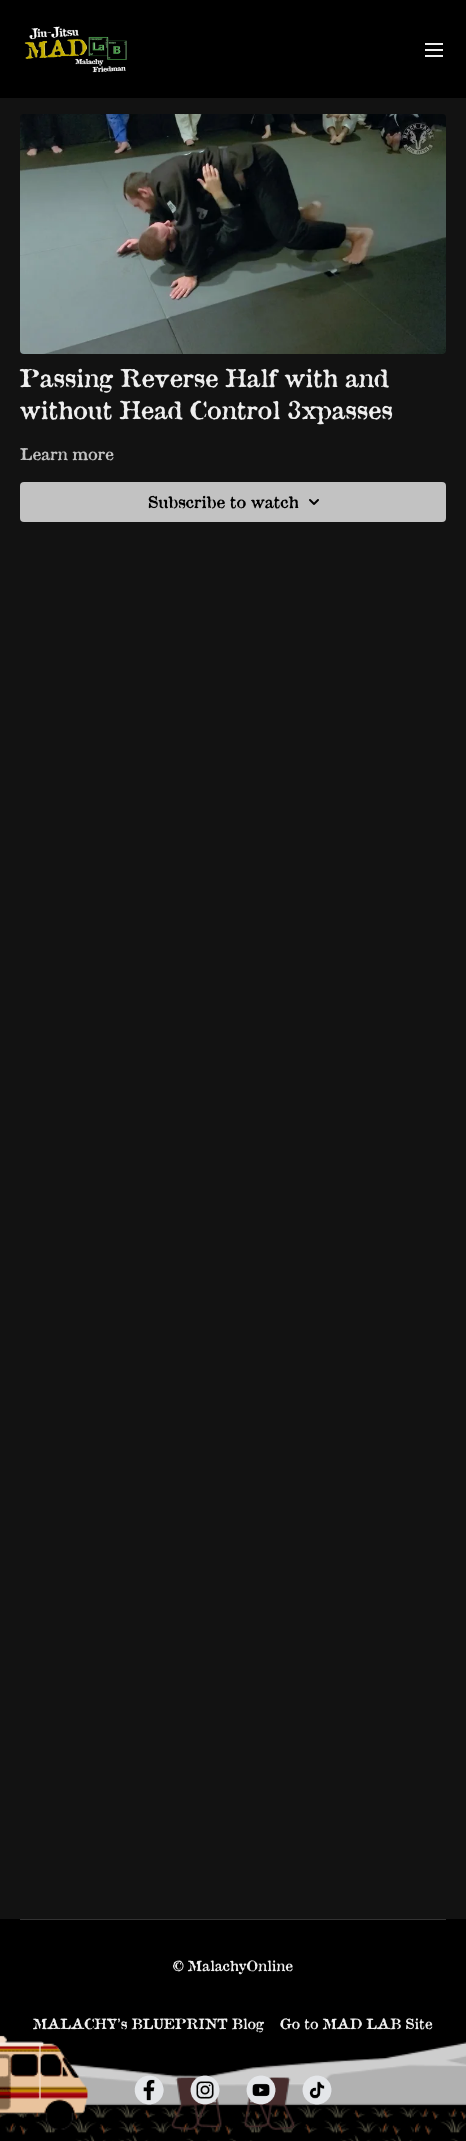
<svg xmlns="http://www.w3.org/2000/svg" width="466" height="2141">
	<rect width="100%" height="100%" fill="#121212" />
	<rect x="0" y="0" width="466" height="98" fill="#000000" />
	<image x="24" y="26" width="103" height="47" href="assets/img1.png" />
	<image x="425" y="43" width="18" height="14" href="assets/img2.png" />
	<image x="20" y="114" width="426" height="240" href="assets/img3.png" />
	<image x="19" y="368" width="370" height="25" href="assets/img4.png" />
	<image x="20" y="400" width="373" height="25" href="assets/img5.png" />
	<image x="20" y="448" width="94" height="13" href="assets/img6.png" />
	<rect x="20" y="482" width="426" height="40" rx="4" fill="#C2C2C2" />
	<image x="148" y="495" width="151" height="14" href="assets/img7.png" />
	<image x="309" y="499" width="10" height="6" href="assets/img8.png" />
	<rect x="0" y="1919" width="466" height="116" fill="#000000" />
	<image x="0" y="2035" width="466" height="106" href="assets/img9.png" />
	<rect x="20" y="1919" width="426" height="1" fill="#323232" />
	<image x="173" y="1960" width="120" height="15" href="assets/img10.png" />
	<image x="33" y="2018" width="232" height="15" href="assets/img11.png" />
	<image x="280" y="2018" width="153" height="12" href="assets/img12.png" />
	<image x="134" y="2075" width="30" height="30" href="assets/img13.png" />
	<image x="190" y="2075" width="30" height="30" href="assets/img14.png" />
	<image x="246" y="2075" width="30" height="30" href="assets/img15.png" />
	<image x="302" y="2075" width="30" height="30" href="assets/img16.png" />
</svg>
